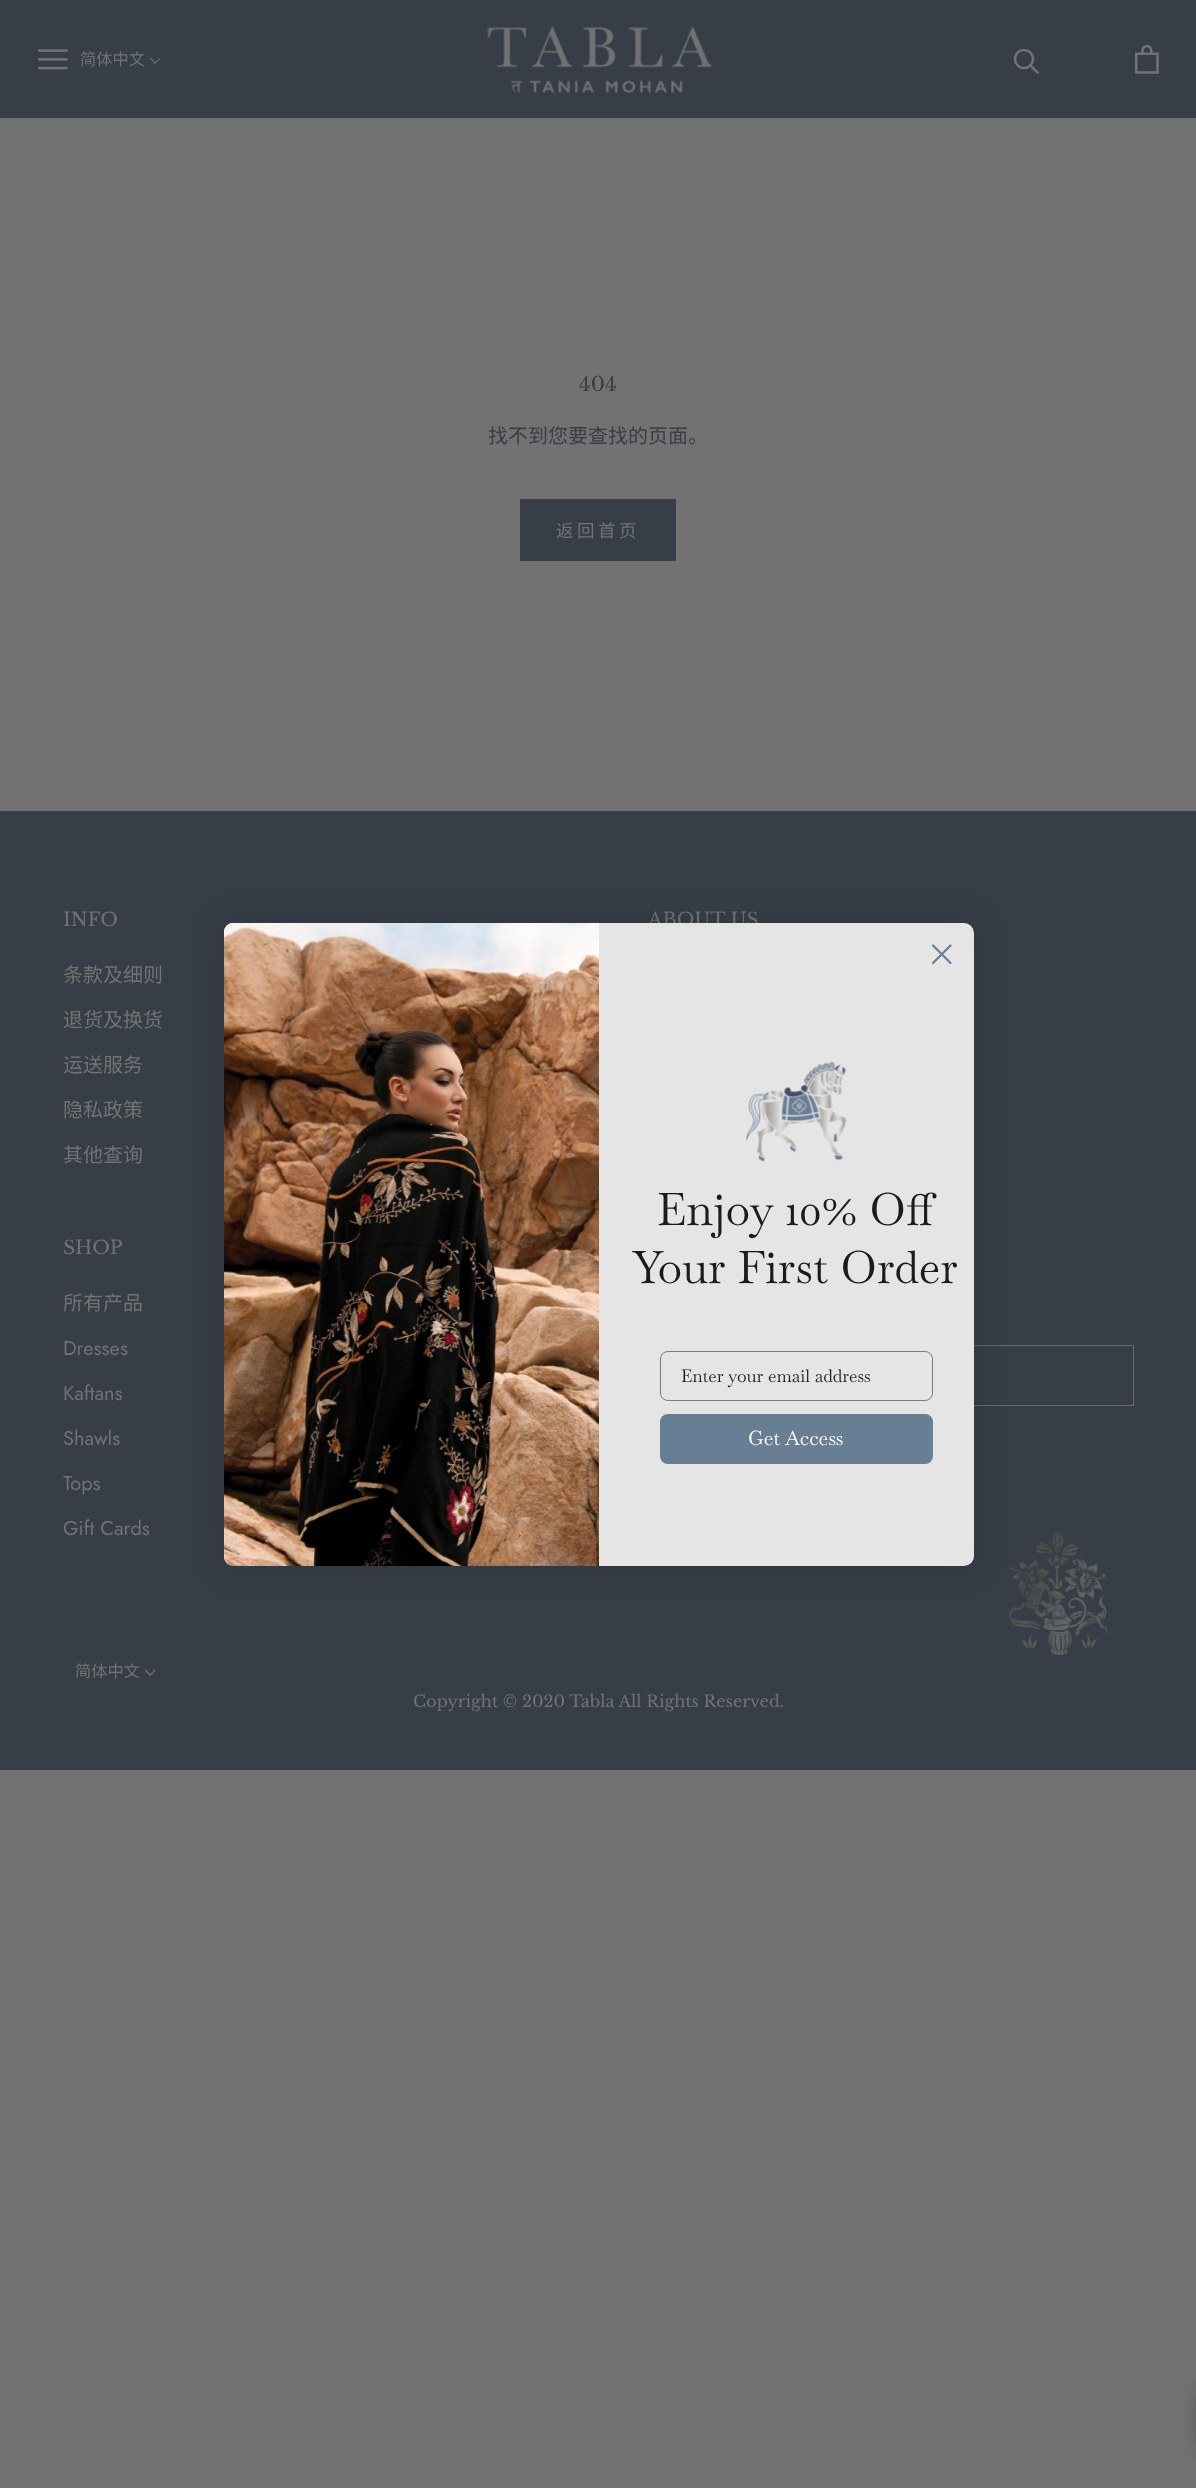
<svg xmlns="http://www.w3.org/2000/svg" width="1196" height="2488">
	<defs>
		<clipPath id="clip1"><rect x="1014" y="49" width="26" height="26" /></clipPath>
	</defs>
	<rect width="100%" height="100%" fill="#727272" />
	<rect x="0" y="0" width="1196" height="118" fill="#373E47" />
	<rect x="0" y="116" width="1196" height="1" fill="#40464E" />
	<image x="38" y="49" width="30" height="21" href="assets/img1.png" />
	<text x="80" y="65" font-family="Noto Sans CJK SC" font-size="16.25" fill="#727272">简体中文</text>
	<path d="M159.5 58L160.5 58.5L155 64L154.5 63Z" fill="#727272" />
	<path d="M151 58L156 63L155 64L150 58.5Z" fill="#727272" />
	<image x="487" y="26" width="225" height="68" href="assets/img2.png" />
	<path d="M1037.5 72.5L1030.5 65.5" fill="none" stroke="#727272" stroke-width="2.5" stroke-linecap="square" />
	<g clip-path="url(#clip1)">
		<circle cx="1024" cy="59" r="9" fill="none" stroke="#727272" stroke-width="2.5" />
	</g>
	<image x="1135" y="45" width="24" height="29" href="assets/img3.png" />
	<text x="579" y="391" font-family="Libre Baskerville" font-size="20" fill="#373E47">404</text>
	<text x="488" y="443" font-family="Noto Sans CJK SC" font-size="20" fill="#373E47">找不到您要查找的页面。</text>
	<rect x="520.5" y="499.5" width="155" height="61" fill="none" stroke="#373E47" />
	<rect x="521" y="500" width="154" height="60" fill="#373E47" />
	<text x="556" y="537" font-family="Noto Sans CJK SC" font-size="17.5" letter-spacing="3.5" fill="#727272">返回首页</text>
	<rect x="0" y="811" width="1196" height="959" fill="#373E47" />
	<text x="63" y="926" font-family="Libre Baskerville" font-size="18.75" fill="#727272">INFO</text>
	<g font-family="Noto Sans CJK SC" font-size="20" fill="#727272">
		<text x="63" y="982">条款及细则</text>
		<text x="63" y="1027">退货及换货</text>
		<text x="63" y="1072">运送服务</text>
		<text x="63" y="1117">隐私政策</text>
		<text x="63" y="1162">其他查询</text>
	</g>
	<g font-family="Libre Baskerville" font-size="18.75" fill="#727272">
		<text x="648" y="926">ABOUT US</text>
		<text x="63" y="1254">SHOP</text>
	</g>
	<text x="63" y="1310" font-family="Noto Sans CJK SC" font-size="20" fill="#727272">所有产品</text>
	<g font-family="Jost" font-size="20" fill="#727272">
		<text x="63" y="1355">Dresses</text>
		<text x="63" y="1400">Kaftans</text>
		<text x="63" y="1445">Shawls</text>
		<text x="63" y="1490">Tops</text>
		<text x="63" y="1535">Gift Cards</text>
	</g>
	<rect x="649.5" y="1345.5" width="484" height="60" fill="none" stroke="#696A6C" />
	<text x="75" y="1677" font-family="Noto Sans CJK SC" font-size="16.25" fill="#727272">简体中文</text>
	<path d="M154.5 1669.5L155.5 1670.5L150 1676L149.5 1675Z" fill="#727272" />
	<path d="M146 1669.5L151 1675L150 1676L145 1670.5Z" fill="#727272" />
	<image x="1008" y="1531" width="101" height="124" href="assets/img4.png" />
	<text x="413" y="1707" font-family="Libre Baskerville" font-size="16.25" fill="#727272">Copyright © 2020 Tabla All Rights Reserved.</text>
	<rect x="224" y="923" width="750" height="643" rx="10" fill="#000000" fill-opacity="0.15" filter="blur(19px)" />
	<rect x="224" y="923" width="750" height="643" rx="10" fill="#E5E5E5" />
	<path d="M933 945.5L950.5 963M933 963L950.5 945.5Z" fill="none" stroke="#677E94" stroke-width="2.2" stroke-linecap="round" stroke-linejoin="round" />
	<image x="224" y="923" width="375" height="643" href="assets/img5.png" />
	<image x="746" y="1062" width="101" height="100" href="assets/img6.png" />
	<g font-family="Baskervville" font-size="45" fill="#1C1B1B">
		<text x="657" y="1225">Enjoy 10% Off</text>
		<text x="633" y="1283">Your First Order</text>
	</g>
	<rect x="660.5" y="1351.5" width="272" height="49" rx="7.5" fill="none" stroke="#7C7C7C" />
	<text x="681" y="1382" font-family="Baskervville" font-size="17.5" fill="#1C1B1B">Enter your email address</text>
	<rect x="660" y="1414" width="273" height="50" rx="8" fill="#677E94" />
	<text x="748" y="1445" font-family="Baskervville" font-size="20" fill="#FFFFFF">Get Access</text>
	<rect x="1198" y="2389" width="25" height="62" fill="#3B3B3B" fill-opacity="0.5" filter="blur(9px)" />
</svg>
